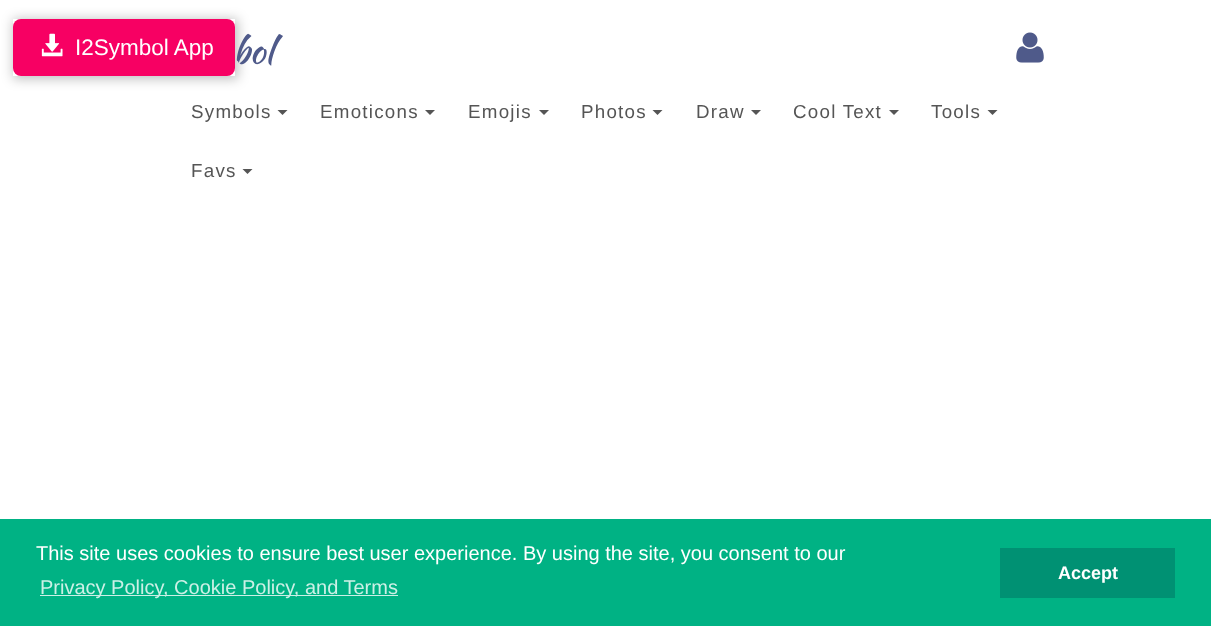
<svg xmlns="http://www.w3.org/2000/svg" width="1211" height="626">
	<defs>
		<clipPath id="clip1"><path d="M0 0H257V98H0ZM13 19H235V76H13Z" clip-rule="evenodd" /></clipPath>
	</defs>
	<rect width="100%" height="100%" fill="#FFFFFF" />
	<g clip-path="url(#clip1)">
		<rect x="13" y="19" width="225" height="60" fill="#000000" fill-opacity="0.25" filter="blur(6px)" />
	</g>
	<rect x="13" y="19" width="222" height="57" rx="8" fill="#F70063" />
	<image x="41" y="33" width="22" height="24" href="assets/img1.png" />
	<text x="75" y="55" font-family="Liberation Sans" font-size="22.5" fill="#FFFFFF">I2Symbol App</text>
	<text x="233" y="63" font-family="Kaushan Script" font-size="35" fill="#4F5A8A">bol</text>
	<image x="1016" y="32" width="28" height="31" href="assets/img2.png" />
	<text x="191" y="118" font-family="Liberation Sans" font-size="18.75" letter-spacing="1.25" fill="#555555">Symbols</text>
	<path d="M277.5 110H287.5L282.5 115Z" fill="#555555" />
	<text x="320" y="118" font-family="Liberation Sans" font-size="18.75" letter-spacing="1.25" fill="#555555">Emoticons</text>
	<path d="M425 110H435L430 115Z" fill="#555555" />
	<text x="468" y="118" font-family="Liberation Sans" font-size="18.75" letter-spacing="1.25" fill="#555555">Emojis</text>
	<path d="M539 110H549L544 115Z" fill="#555555" />
	<text x="581" y="118" font-family="Liberation Sans" font-size="18.75" letter-spacing="1.25" fill="#555555">Photos</text>
	<path d="M652.5 110H662.5L657.5 115Z" fill="#555555" />
	<text x="696" y="118" font-family="Liberation Sans" font-size="18.75" letter-spacing="1.25" fill="#555555">Draw</text>
	<path d="M751 110H761L756 115Z" fill="#555555" />
	<text x="793" y="118" font-family="Liberation Sans" font-size="18.75" letter-spacing="1.25" fill="#555555">Cool Text</text>
	<path d="M889 110H899L894 115Z" fill="#555555" />
	<text x="931" y="118" font-family="Liberation Sans" font-size="18.75" letter-spacing="1.25" fill="#555555">Tools</text>
	<path d="M987.5 110H997.5L992.5 115Z" fill="#555555" />
	<text x="191" y="177" font-family="Liberation Sans" font-size="18.75" letter-spacing="1.25" fill="#555555">Favs</text>
	<path d="M242.5 169H252.5L247.5 174Z" fill="#555555" />
	<rect x="0" y="519" width="1211" height="107" fill="#00B284" />
	<text x="36" y="560" font-family="Liberation Sans" font-size="20" fill="#FFFFFF">This site uses cookies to ensure best user experience. By using the site, you consent to our</text>
	<rect x="40" y="595" width="358" height="1" fill="#CCF0E6" />
	<text x="40" y="594" font-family="Liberation Sans" font-size="20" fill="#CCF0E6">Privacy Policy, Cookie Policy, and Terms</text>
	<rect x="1000" y="548" width="175" height="50" fill="#009173" />
	<text x="1058" y="579" font-family="Liberation Sans" font-size="18" font-weight="700" fill="#FFFFFF">Accept</text>
</svg>
